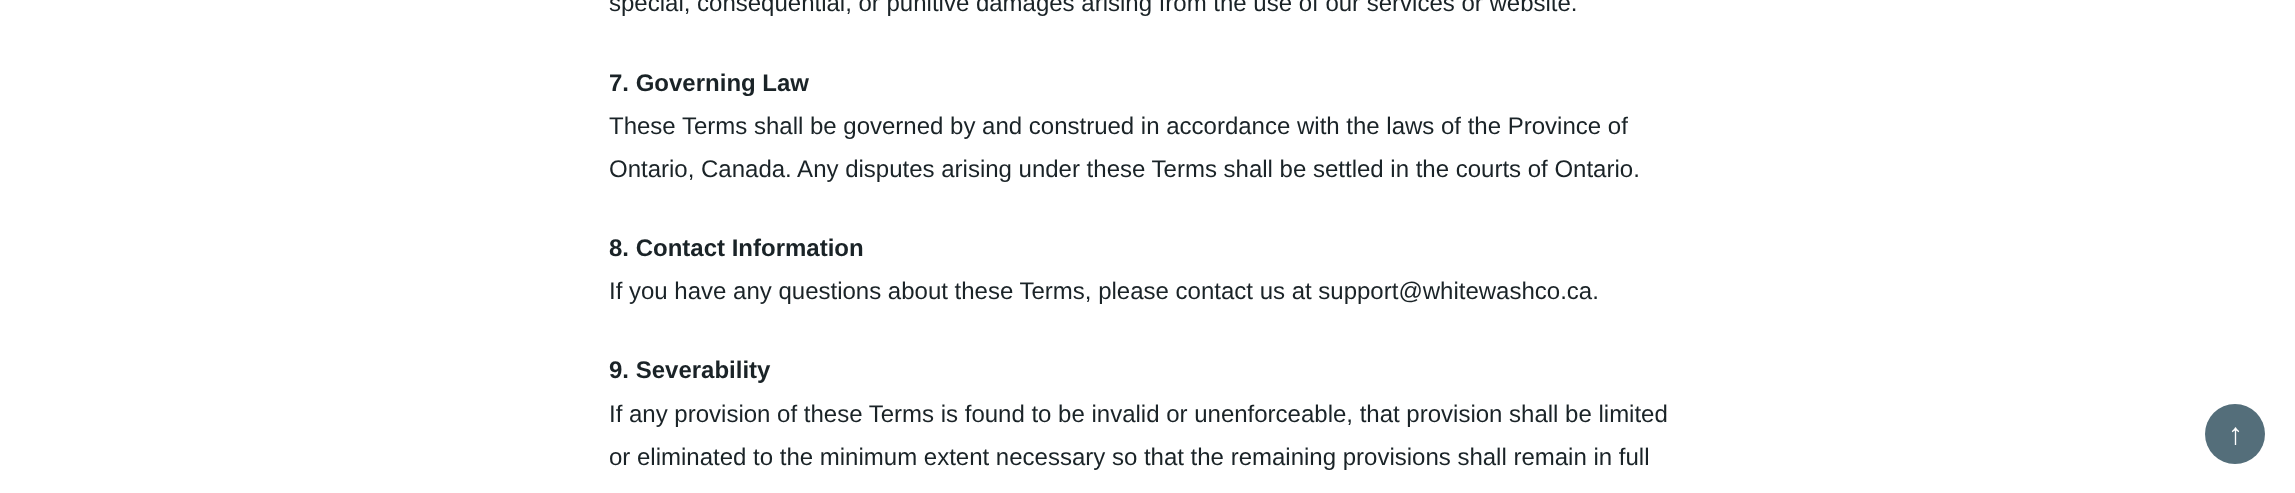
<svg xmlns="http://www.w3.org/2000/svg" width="2295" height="493">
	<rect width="100%" height="100%" fill="#FFFFFF" />
	<text x="609" y="11" font-family="Liberation Sans" font-size="24" fill="#1A2327">special, consequential, or punitive damages arising from the use of our services or website.</text>
	<text x="609" y="91" font-family="Liberation Sans" font-size="24" font-weight="700" fill="#1A2327">7. Governing Law</text>
	<g font-family="Liberation Sans" font-size="24" fill="#1A2327">
		<text x="609" y="134">These Terms shall be governed by and construed in accordance with the laws of the Province of</text>
		<text x="609" y="177">Ontario, Canada. Any disputes arising under these Terms shall be settled in the courts of Ontario.</text>
	</g>
	<text x="609" y="256" font-family="Liberation Sans" font-size="24" font-weight="700" fill="#1A2327">8. Contact Information</text>
	<text x="609" y="299" font-family="Liberation Sans" font-size="24" fill="#1A2327">If you have any questions about these Terms, please contact us at support@whitewashco.ca.</text>
	<text x="609" y="378" font-family="Liberation Sans" font-size="24" font-weight="700" fill="#1A2327">9. Severability</text>
	<g font-family="Liberation Sans" font-size="24" fill="#1A2327">
		<text x="609" y="422">If any provision of these Terms is found to be invalid or unenforceable, that provision shall be limited</text>
		<text x="609" y="465">or eliminated to the minimum extent necessary so that the remaining provisions shall remain in full</text>
	</g>
	<circle cx="2235" cy="434" r="30" fill="#546E7A" />
	<text x="2228" y="444" font-family="Liberation Sans" font-size="30" fill="#FFFFFF">↑</text>
</svg>
